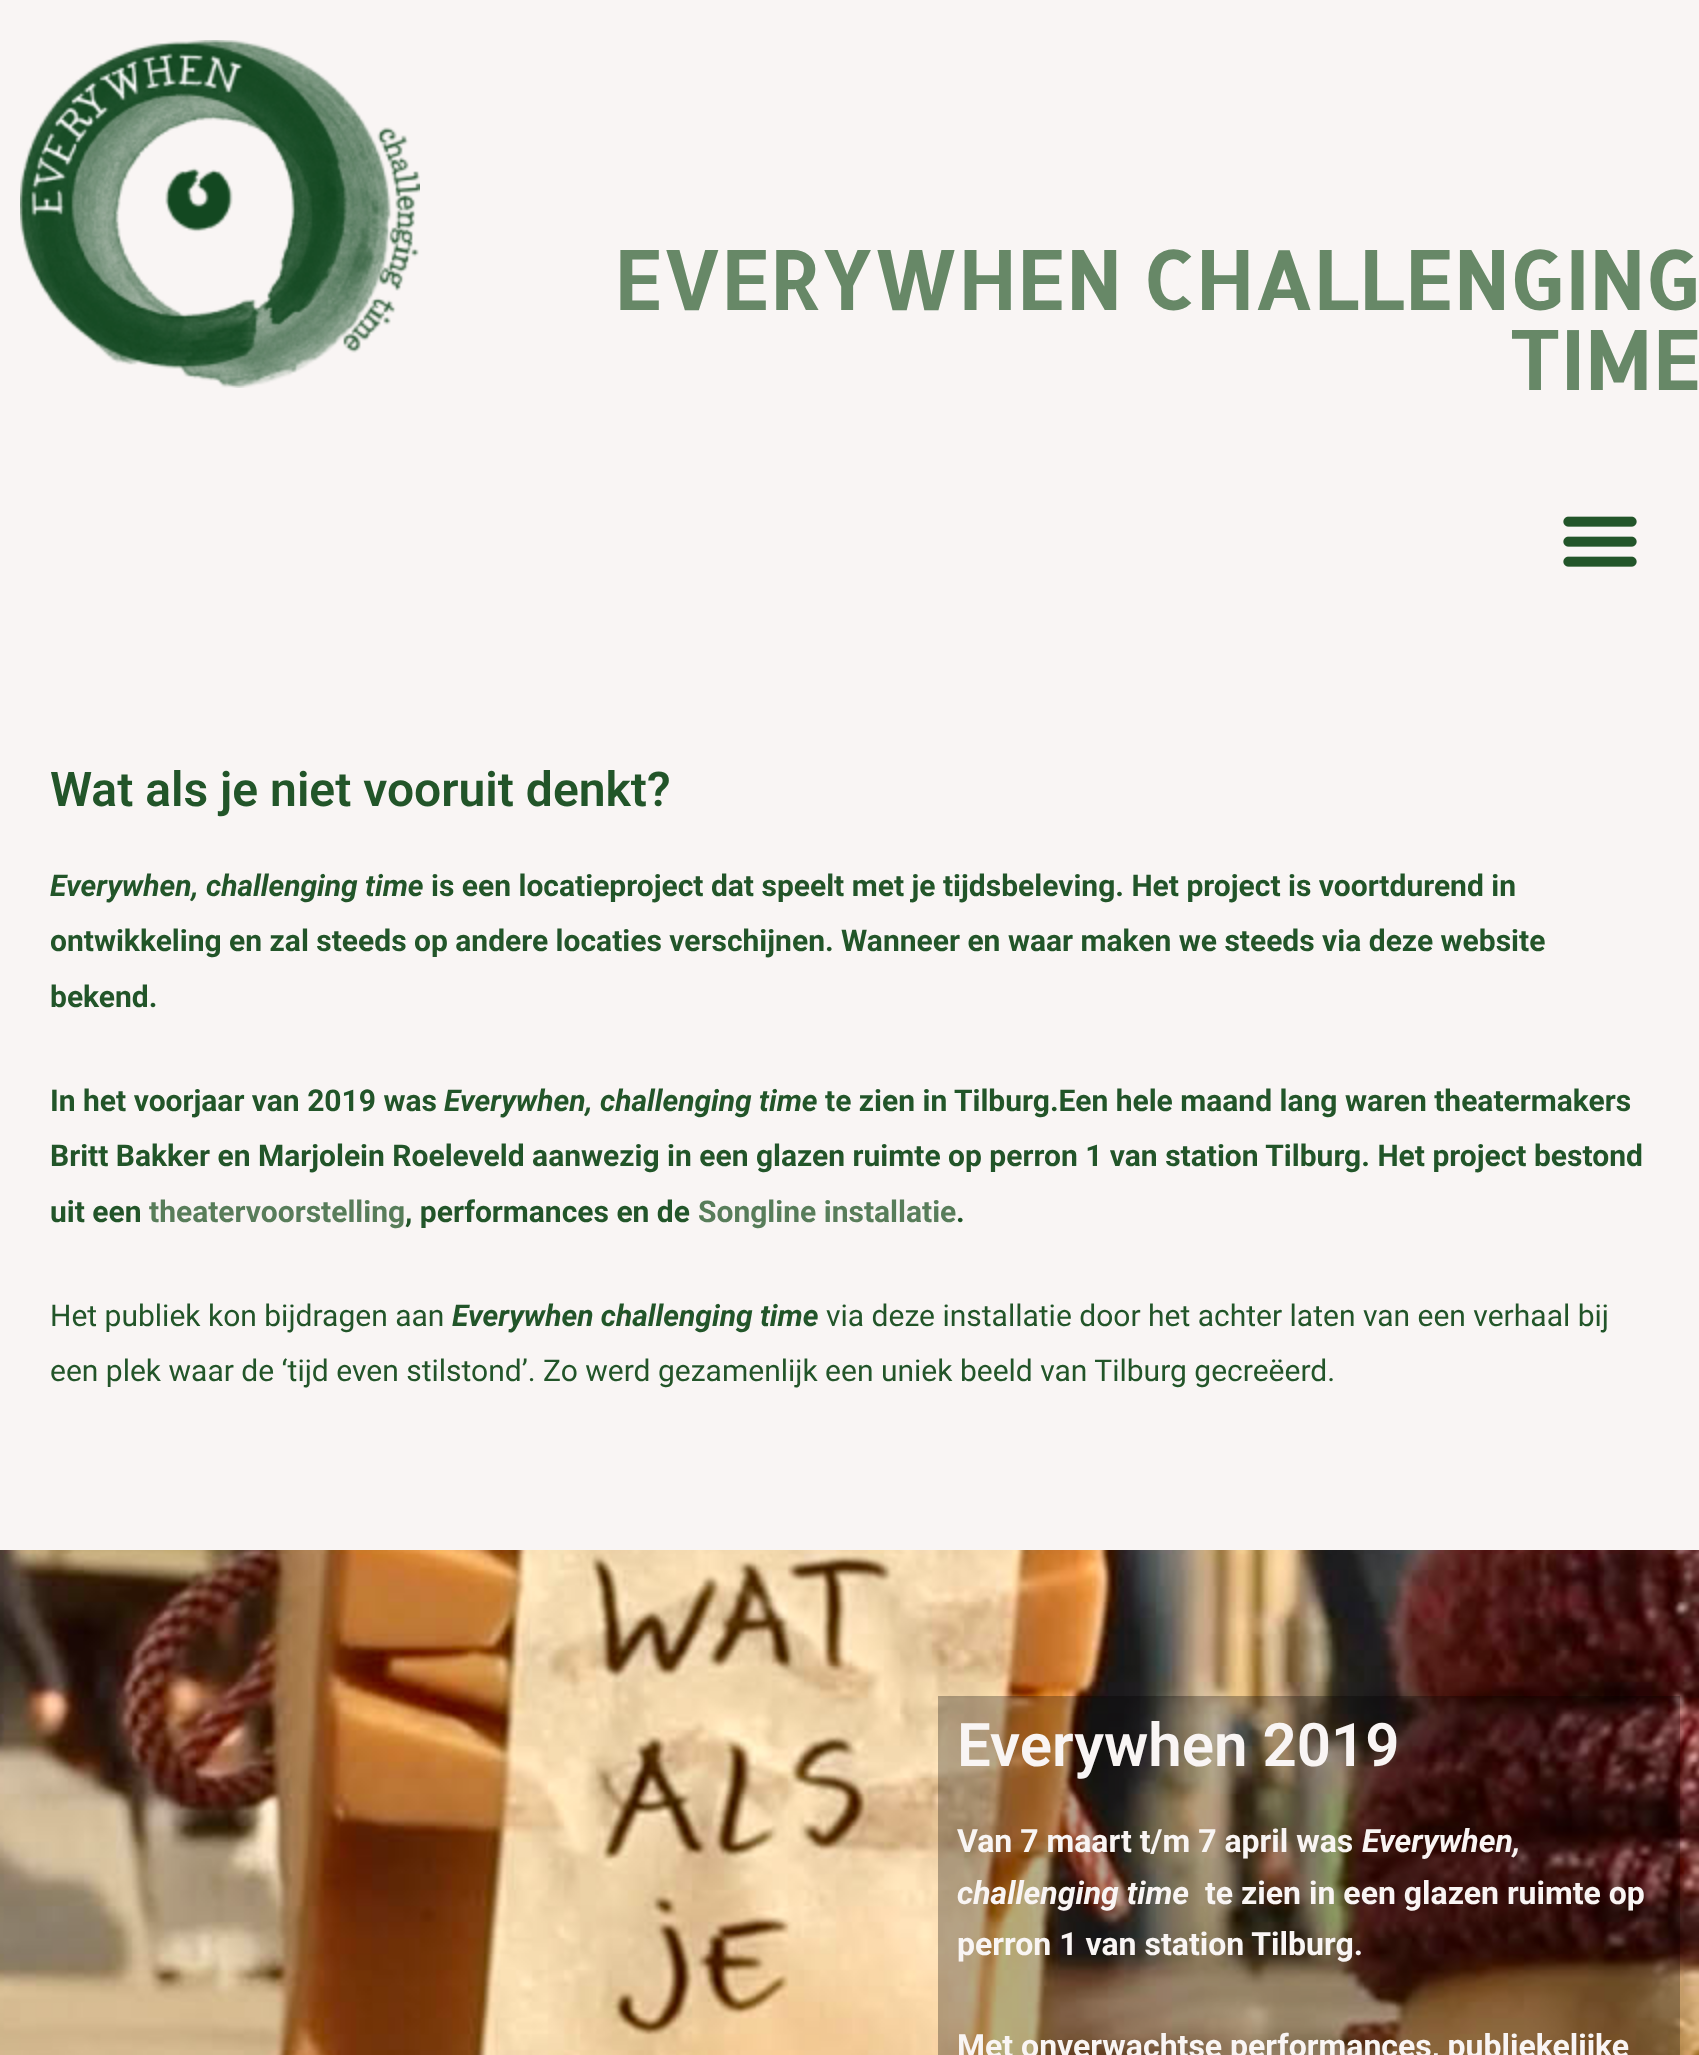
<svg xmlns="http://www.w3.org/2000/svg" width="1699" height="2055">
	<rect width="100%" height="100%" fill="#F9F5F4" />
	<image x="20" y="40" width="400" height="348" href="assets/img1.png" />
	<g font-family="Allerta" font-size="80" font-weight="700" fill="#678867">
		<text x="613" y="310">EVERYWHEN CHALLENGING</text>
		<text x="1508" y="390">TIME</text>
	</g>
	<image x="1563" y="516" width="74" height="51" href="assets/img2.png" />
	<text x="50" y="806" font-family="Roboto" font-size="48" font-weight="600" fill="#225529">Wat als je niet vooruit denkt?</text>
	<text x="50" y="896" font-family="Roboto" font-size="30" font-weight="700" font-style="italic" fill="#225529">Everywhen, challenging time</text>
	<g font-family="Roboto" font-size="30" font-weight="700" fill="#225529">
		<text x="431" y="896">is een locatieproject dat speelt met je tijdsbeleving. Het project is voortdurend in</text>
		<text x="50" y="951">ontwikkeling en zal steeds op andere locaties verschijnen. Wanneer en waar maken we steeds via deze website</text>
		<text x="50" y="1007">bekend.</text>
		<text x="50" y="1111">In het voorjaar van 2019 was</text>
	</g>
	<text x="444" y="1111" font-family="Roboto" font-size="30" font-weight="700" font-style="italic" fill="#225529">Everywhen, challenging time</text>
	<g font-family="Roboto" font-size="30" font-weight="700" fill="#225529">
		<text x="825" y="1111">te zien in Tilburg.Een hele maand lang waren theatermakers</text>
		<text x="50" y="1166">Britt Bakker en Marjolein Roeleveld aanwezig in een glazen ruimte op perron 1 van station Tilburg. Het project bestond</text>
		<text x="50" y="1222">uit een</text>
	</g>
	<text x="149" y="1222" font-family="Roboto" font-size="30" font-weight="700" fill="#587D5A">theatervoorstelling</text>
	<text x="405" y="1222" font-family="Roboto" font-size="30" font-weight="700" fill="#225529">, performances en de</text>
	<text x="698" y="1222" font-family="Roboto" font-size="30" font-weight="700" fill="#587D5A">Songline installatie</text>
	<text x="956" y="1222" font-family="Roboto" font-size="30" font-weight="700" fill="#225529">.</text>
	<text x="50" y="1326" font-family="Roboto" font-size="30" fill="#225529">Het publiek kon bijdragen aan</text>
	<text x="452" y="1326" font-family="Roboto" font-size="30" font-weight="700" font-style="italic" fill="#225529">Everywhen challenging time</text>
	<g font-family="Roboto" font-size="30" fill="#225529">
		<text x="826" y="1326">via deze installatie door het achter laten van een verhaal bij</text>
		<text x="50" y="1381">een plek waar de ‘tijd even stilstond’. Zo werd gezamenlijk een uniek beeld van Tilburg gecreëerd.</text>
	</g>
	<image x="0" y="1550" width="1699" height="505" href="assets/img3.png" />
	<rect x="938" y="1696" width="742" height="359" fill="#000000" fill-opacity="0.29" />
	<text x="957" y="1766" font-family="Roboto" font-size="60" font-weight="600" fill="#F9F5F4">Everywhen 2019</text>
	<text x="957" y="1852" font-family="Roboto" font-size="32" font-weight="700" fill="#F9F5F4">Van 7 maart t/m 7 april was</text>
	<g font-family="Roboto" font-size="32" font-weight="700" font-style="italic" fill="#F9F5F4">
		<text x="1362" y="1852">Everywhen,</text>
		<text x="957" y="1904">challenging time</text>
	</g>
	<g font-family="Roboto" font-size="32" font-weight="700" fill="#F9F5F4">
		<text x="1205" y="1904">te zien in een glazen ruimte op</text>
		<text x="957" y="1955">perron 1 van station Tilburg.</text>
		<text x="957" y="2057">Met onverwachtse performances, publiekelijke</text>
	</g>
</svg>
